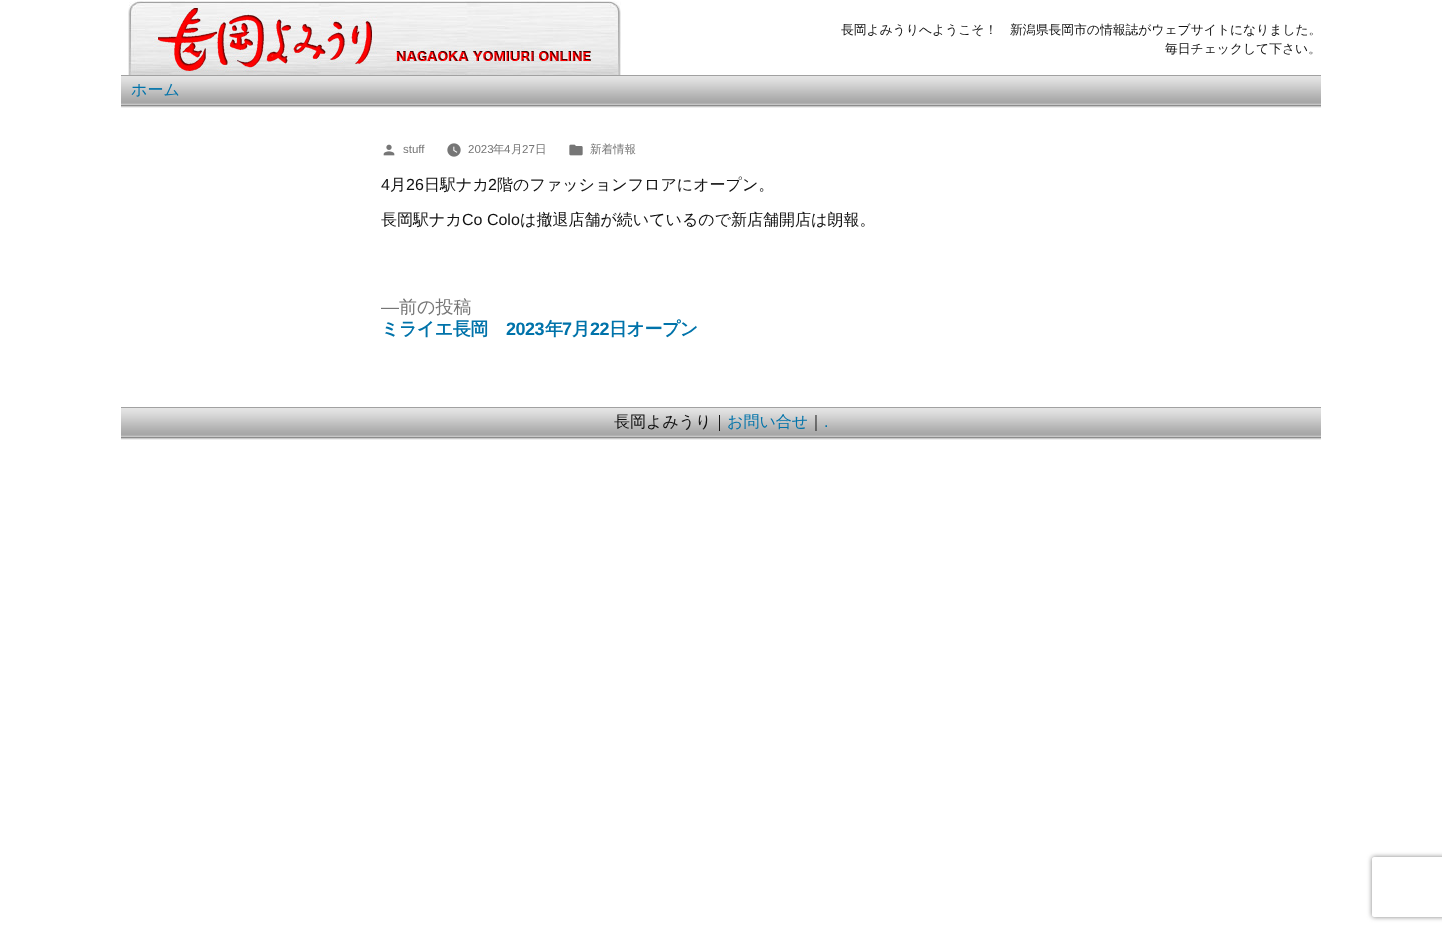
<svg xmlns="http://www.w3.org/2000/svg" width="1442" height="931">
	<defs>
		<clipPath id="clip1"><path d="M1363 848H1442V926H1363ZM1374 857H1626C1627 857 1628 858 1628 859V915C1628 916 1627 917 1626 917H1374C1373 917 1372 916 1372 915V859C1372 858 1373 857 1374 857Z" clip-rule="evenodd" /></clipPath>
	</defs>
	<rect width="100%" height="100%" fill="#FFFFFF" />
	<image x="128" y="1" width="493" height="74" href="assets/img1.png" />
	<g font-family="WenQuanYi Zen Hei" font-size="12.8" font-weight="500" fill="#111111">
		<text x="841" y="34">長岡よみうりへようこそ！　新潟県長岡市の情報誌がウェブサイトになりました。</text>
		<text x="1165" y="53">毎日チェックして下さい。</text>
	</g>
	<image x="121" y="75" width="1200" height="33" href="assets/img2.png" />
	<text x="131" y="95" font-family="WenQuanYi Zen Hei" font-size="16" font-weight="500" fill="#0073AA">ホーム</text>
	<image x="383" y="144" width="12" height="12" href="assets/img3.png" />
	<text x="403" y="153" font-family="Liberation Sans" font-size="11.5" fill="#767676">stuff</text>
	<image x="447" y="143" width="14" height="14" href="assets/img4.png" />
	<text x="468" y="153" font-family="Liberation Sans" font-size="11.5" fill="#767676">2023</text>
	<text x="493" y="153" font-family="WenQuanYi Zen Hei" font-size="11.5" font-weight="500" fill="#767676">年</text>
	<text x="504" y="153" font-family="Liberation Sans" font-size="11.5" fill="#767676">4</text>
	<text x="511" y="153" font-family="WenQuanYi Zen Hei" font-size="11.5" font-weight="500" fill="#767676">月</text>
	<text x="522" y="153" font-family="Liberation Sans" font-size="11.5" fill="#767676">27</text>
	<text x="535" y="153" font-family="WenQuanYi Zen Hei" font-size="11.5" font-weight="500" fill="#767676">日</text>
	<image x="569" y="144" width="14" height="12" href="assets/img5.png" />
	<text x="590" y="153" font-family="WenQuanYi Zen Hei" font-size="11.5" font-weight="500" fill="#767676">新着情報</text>
	<text x="381" y="190" font-family="Liberation Sans" font-size="16" fill="#111111">4</text>
	<text x="390" y="190" font-family="WenQuanYi Zen Hei" font-size="16" font-weight="500" fill="#111111">月</text>
	<text x="406" y="190" font-family="Liberation Sans" font-size="16" fill="#111111">26</text>
	<text x="424" y="190" font-family="WenQuanYi Zen Hei" font-size="16" font-weight="500" fill="#111111">日駅ナカ</text>
	<text x="488" y="190" font-family="Liberation Sans" font-size="16" fill="#111111">2</text>
	<g font-family="WenQuanYi Zen Hei" font-size="16" font-weight="500" fill="#111111">
		<text x="497" y="190">階のファッションフロアにオープン。</text>
		<text x="381" y="225">長岡駅ナカ</text>
	</g>
	<text x="462" y="225" font-family="Liberation Sans" font-size="16" fill="#111111">Co Colo</text>
	<text x="520" y="225" font-family="WenQuanYi Zen Hei" font-size="16" font-weight="500" fill="#111111">は撤退店舗が続いているので新店舗開店は朗報。</text>
	<text x="381" y="313" font-family="Liberation Sans" font-size="18" fill="#767676">—</text>
	<text x="399" y="313" font-family="WenQuanYi Zen Hei" font-size="18" font-weight="500" fill="#767676">前の投稿</text>
	<text x="381" y="335" font-family="WenQuanYi Zen Hei" font-size="18" font-weight="700" letter-spacing="-0.5" fill="#0073AA">ミライエ長岡</text>
	<text x="506" y="335" font-family="Liberation Sans" font-size="18" font-weight="700" letter-spacing="-0.5" fill="#0073AA">2023</text>
	<text x="545" y="335" font-family="WenQuanYi Zen Hei" font-size="18" font-weight="700" letter-spacing="-0.5" fill="#0073AA">年</text>
	<text x="562" y="335" font-family="Liberation Sans" font-size="18" font-weight="700" letter-spacing="-0.5" fill="#0073AA">7</text>
	<text x="572" y="335" font-family="WenQuanYi Zen Hei" font-size="18" font-weight="700" letter-spacing="-0.5" fill="#0073AA">月</text>
	<text x="590" y="335" font-family="Liberation Sans" font-size="18" font-weight="700" letter-spacing="-0.5" fill="#0073AA">22</text>
	<text x="609" y="335" font-family="WenQuanYi Zen Hei" font-size="18" font-weight="700" letter-spacing="-0.5" fill="#0073AA">日オープン</text>
	<image x="121" y="407" width="1200" height="33" href="assets/img2.png" />
	<text x="614" y="427" font-family="WenQuanYi Zen Hei" font-size="16" font-weight="500" fill="#111111">長岡よみうり｜</text>
	<text x="727" y="427" font-family="WenQuanYi Zen Hei" font-size="16" font-weight="500" fill="#0073AA">お問い合せ</text>
	<text x="808" y="427" font-family="WenQuanYi Zen Hei" font-size="16" font-weight="500" fill="#111111">｜</text>
	<text x="824" y="427" font-family="Liberation Sans" font-size="16" fill="#0073AA">.</text>
	<g clip-path="url(#clip1)">
		<rect x="1372" y="857" width="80" height="60" rx="2" fill="#808080" filter="blur(2.5px)" />
	</g>
</svg>
